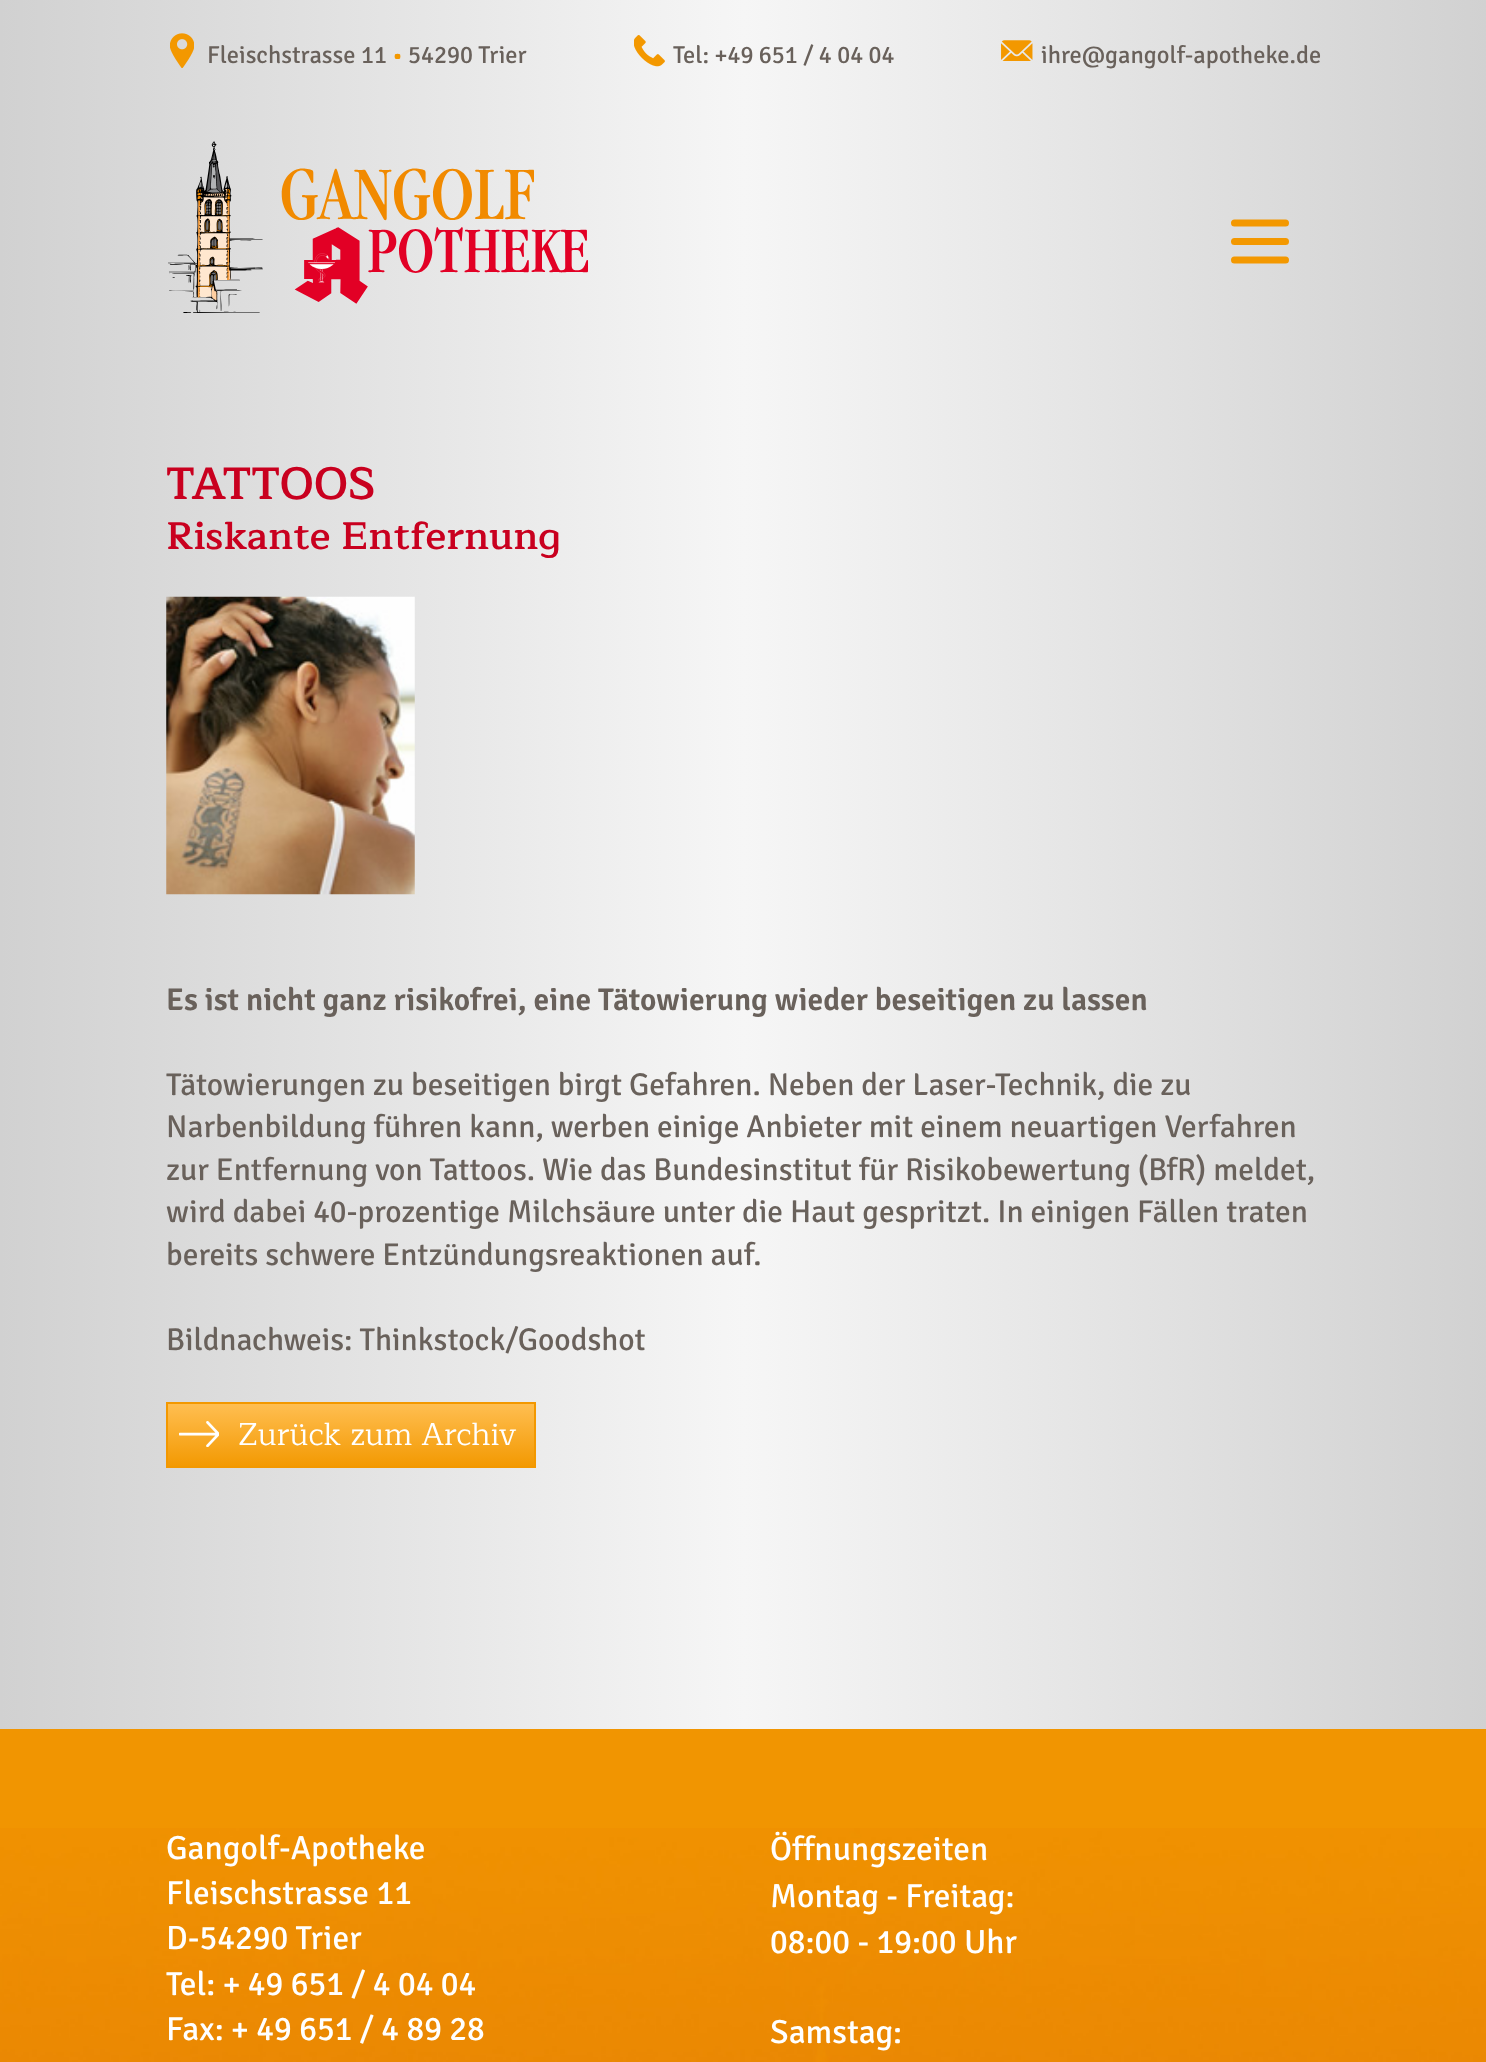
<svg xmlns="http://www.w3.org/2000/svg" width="1486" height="2062">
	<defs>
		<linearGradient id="g1" gradientUnits="userSpaceOnUse" x1="0" y1="1032" x2="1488" y2="1032"><stop offset="0" stop-color="#D1D1D1" /><stop offset="0.5" stop-color="#F6F6F6" /><stop offset="1" stop-color="#D1D1D1" /></linearGradient>
		<linearGradient id="g2" gradientUnits="userSpaceOnUse" x1="351" y1="1404" x2="351" y2="1467"><stop offset="0" stop-color="#FFBE51" /><stop offset="1" stop-color="#F39901" /></linearGradient>
	</defs>
	<rect width="100%" height="100%" fill="#FFFFFF" />
	<rect x="0" y="0" width="1486" height="1729" fill="url(#g1)" />
	<image x="170" y="33" width="24" height="35" href="assets/img1.png" />
	<text x="207" y="63" font-family="Signika" font-size="24.5" fill="#69615B">Fleischstrasse 11</text>
	<text x="392" y="63" font-family="Signika" font-size="24.5" fill="#F39800">•</text>
	<text x="408" y="63" font-family="Signika" font-size="24.5" fill="#69615B">54290 Trier</text>
	<image x="634" y="35" width="31" height="32" href="assets/img2.png" />
	<text x="673" y="63" font-family="Signika" font-size="24.5" fill="#69615B">Tel: +49 651 / 4 04 04</text>
	<image x="1001" y="40" width="32" height="21" href="assets/img3.png" />
	<text x="1041" y="63" font-family="Signika" font-size="24.5" fill="#69615B">ihre@gangolf-apotheke.de</text>
	<image x="168" y="141" width="420" height="172" href="assets/img4.png" />
	<path d="M1234.5 223H1285.5M1234.5 241.5H1285.5M1234.5 260H1285.5" fill="none" stroke="#F39800" stroke-width="7" stroke-linecap="round" />
	<text x="166" y="499" font-family="Maitree" font-size="45.5" font-weight="600" fill="#C9001F">TATTOOS</text>
	<text x="166" y="549" font-family="Maitree" font-size="38.5" font-weight="600" fill="#C9001F">Riskante Entfernung</text>
	<image x="166" y="596" width="249" height="299" href="assets/img5.png" />
	<text x="166" y="1010" font-family="Signika" font-size="31.5" font-weight="600" fill="#69615B">Es ist nicht ganz risikofrei, eine Tätowierung wieder beseitigen zu lassen</text>
	<g font-family="Signika" font-size="31.5" fill="#69615B">
		<text x="166" y="1095">Tätowierungen zu beseitigen birgt Gefahren. Neben der Laser-Technik, die zu</text>
		<text x="166" y="1137">Narbenbildung führen kann, werben einige Anbieter mit einem neuartigen Verfahren</text>
		<text x="166" y="1180">zur Entfernung von Tattoos. Wie das Bundesinstitut für Risikobewertung (BfR) meldet,</text>
		<text x="166" y="1222">wird dabei 40-prozentige Milchsäure unter die Haut gespritzt. In einigen Fällen traten</text>
		<text x="166" y="1265">bereits schwere Entzündungsreaktionen auf.</text>
		<text x="166" y="1350">Bildnachweis: Thinkstock/Goodshot</text>
	</g>
	<rect x="168" y="1404" width="366" height="62" fill="url(#g2)" />
	<rect x="167" y="1403" width="368" height="64" fill="none" stroke="#F39800" stroke-width="2" />
	<image x="179" y="1421" width="40" height="26" href="assets/img6.png" />
	<text x="238" y="1445" font-family="Maitree" font-size="31.5" fill="#FFFFFF">Zurück zum Archiv</text>
	<rect x="0" y="1729" width="1486" height="99" fill="#F19501" />
	<image x="0" y="1828" width="1486" height="234" href="assets/img7.png" />
	<g font-family="Signika" font-size="33.5" fill="#FFFFFF">
		<text x="166" y="1859">Gangolf-Apotheke</text>
		<text x="166" y="1904">Fleischstrasse 11</text>
		<text x="166" y="1949">D-54290 Trier</text>
		<text x="166" y="1995">Tel: + 49 651 / 4 04 04</text>
		<text x="166" y="2040">Fax: + 49 651 / 4 89 28</text>
		<text x="770" y="1860">Öffnungszeiten</text>
		<text x="770" y="1907">Montag - Freitag:</text>
		<text x="770" y="1953">08:00 - 19:00 Uhr</text>
		<text x="770" y="2043">Samstag:</text>
	</g>
</svg>
